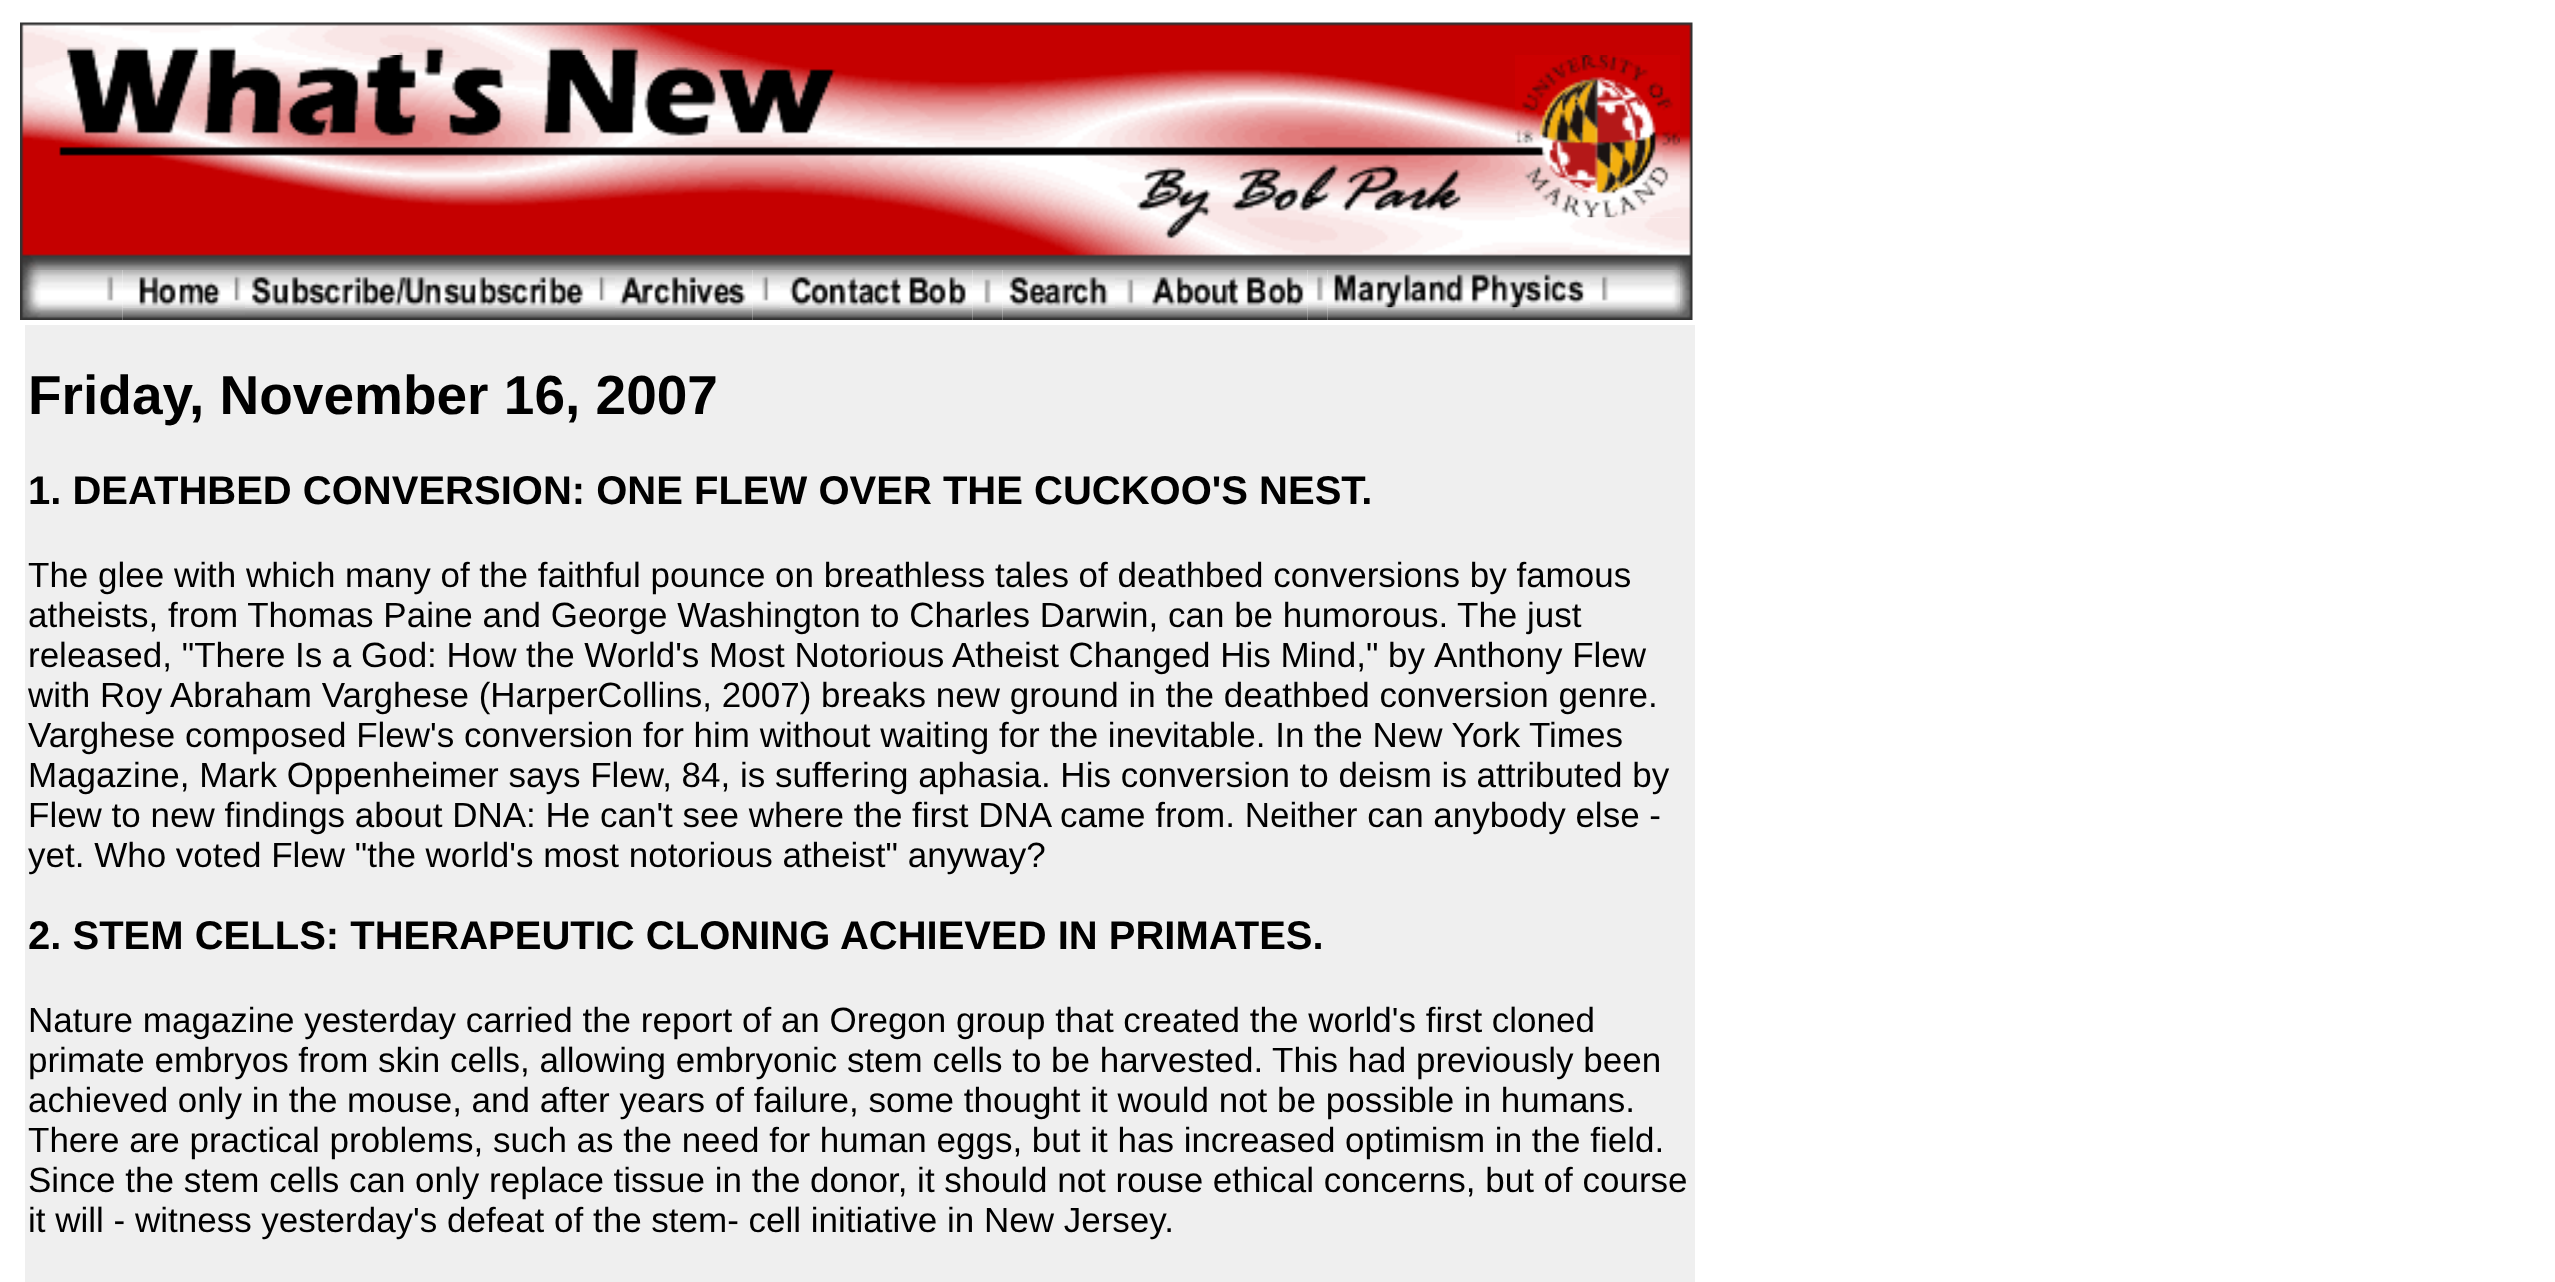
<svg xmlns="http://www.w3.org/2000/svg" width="2555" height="1282">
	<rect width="100%" height="100%" fill="#FFFFFF" />
	<image x="20" y="22" width="1673" height="33" href="assets/img1.png" />
	<image x="20" y="55" width="1495" height="215" href="assets/img2.png" />
	<image x="1515" y="55" width="165" height="163" href="assets/img3.png" />
	<image x="1680" y="55" width="13" height="265" href="assets/img4.png" />
	<image x="1515" y="217" width="165" height="53" href="assets/img5.png" />
	<image x="20" y="270" width="103" height="50" href="assets/img6.png" />
	<image x="122" y="270" width="108" height="38" href="assets/img7.png" />
	<image x="230" y="270" width="15" height="50" href="assets/img8.png" />
	<image x="245" y="270" width="345" height="38" href="assets/img9.png" />
	<image x="590" y="270" width="25" height="50" href="assets/img10.png" />
	<image x="615" y="270" width="138" height="38" href="assets/img11.png" />
	<image x="752" y="270" width="28" height="50" href="assets/img12.png" />
	<image x="780" y="270" width="193" height="38" href="assets/img13.png" />
	<image x="972" y="270" width="31" height="50" href="assets/img14.png" />
	<image x="1002" y="270" width="113" height="38" href="assets/img15.png" />
	<image x="1115" y="270" width="30" height="50" href="assets/img16.png" />
	<image x="1145" y="270" width="163" height="38" href="assets/img17.png" />
	<image x="1307" y="270" width="21" height="50" href="assets/img18.png" />
	<image x="1327" y="270" width="263" height="38" href="assets/img19.png" />
	<image x="1590" y="270" width="90" height="50" href="assets/img20.png" />
	<image x="122" y="307" width="108" height="13" href="assets/img21.png" />
	<image x="245" y="307" width="345" height="13" href="assets/img22.png" />
	<image x="615" y="307" width="138" height="13" href="assets/img23.png" />
	<image x="780" y="307" width="193" height="13" href="assets/img24.png" />
	<image x="1002" y="307" width="113" height="13" href="assets/img25.png" />
	<image x="1145" y="307" width="163" height="13" href="assets/img26.png" />
	<image x="1327" y="307" width="263" height="13" href="assets/img27.png" />
	<rect x="25" y="325" width="1670" height="957" fill="#EFEFEF" />
	<text x="28" y="414" font-family="Liberation Sans" font-size="55" font-weight="700" fill="#000000">Friday, November 16, 2007</text>
	<text x="28" y="504" font-family="Liberation Sans" font-size="40" font-weight="700" fill="#000000">1. DEATHBED CONVERSION: ONE FLEW OVER THE CUCKOO'S NEST.</text>
	<g font-family="Liberation Sans" font-size="35" fill="#000000">
		<text x="28" y="587">The glee with which many of the faithful pounce on breathless tales of deathbed conversions by famous</text>
		<text x="28" y="627">atheists, from Thomas Paine and George Washington to Charles Darwin, can be humorous.</text>
		<text x="1457" y="627">The just</text>
		<text x="28" y="667">released, "There</text>
		<text x="295" y="667" word-spacing="-0.1">Is a God: How the World's Most Notorious Atheist Changed His Mind," by</text>
		<text x="1434" y="667">Anthony Flew</text>
		<text x="28" y="707">with Roy Abraham Varghese (HarperCollins, 2007) breaks new ground in the deathbed conversion genre.</text>
		<text x="28" y="747">Varghese composed Flew's conversion for him without waiting for the inevitable. In the New York</text>
		<text x="1529" y="747">Times</text>
		<text x="28" y="787">Magazine, Mark Oppenheimer says Flew, 84, is suffering aphasia. His conversion to deism is attributed by</text>
		<text x="28" y="827">Flew to new findings about DNA: He can't see where the first DNA came from. Neither can anybody else -</text>
		<text x="28" y="867">yet. Who voted Flew "the world's most notorious atheist" anyway?</text>
	</g>
	<text x="28" y="949" font-family="Liberation Sans" font-size="40" font-weight="700" fill="#000000">2. STEM CELLS: THERAPEUTIC CLONING ACHIEVED IN PRIMATES.</text>
	<g font-family="Liberation Sans" font-size="35" fill="#000000">
		<text x="28" y="1032">Nature magazine yesterday carried the report of an Oregon group that created the world's first cloned</text>
		<text x="28" y="1072">primate embryos from skin cells, allowing embryonic stem cells to be harvested.</text>
		<text x="1272" y="1072">This had previously been</text>
		<text x="28" y="1112">achieved only in the mouse, and after years of failure, some thought it would not be possible in humans.</text>
		<text x="28" y="1152">There are practical problems, such as the need for human eggs, but it has increased optimism in the field.</text>
		<text x="28" y="1192">Since the stem cells can only replace tissue in the donor, it should not rouse ethical concerns, but of course</text>
		<text x="28" y="1232">it will - witness yesterday's defeat of the stem- cell initiative in New Jersey.</text>
	</g>
</svg>
